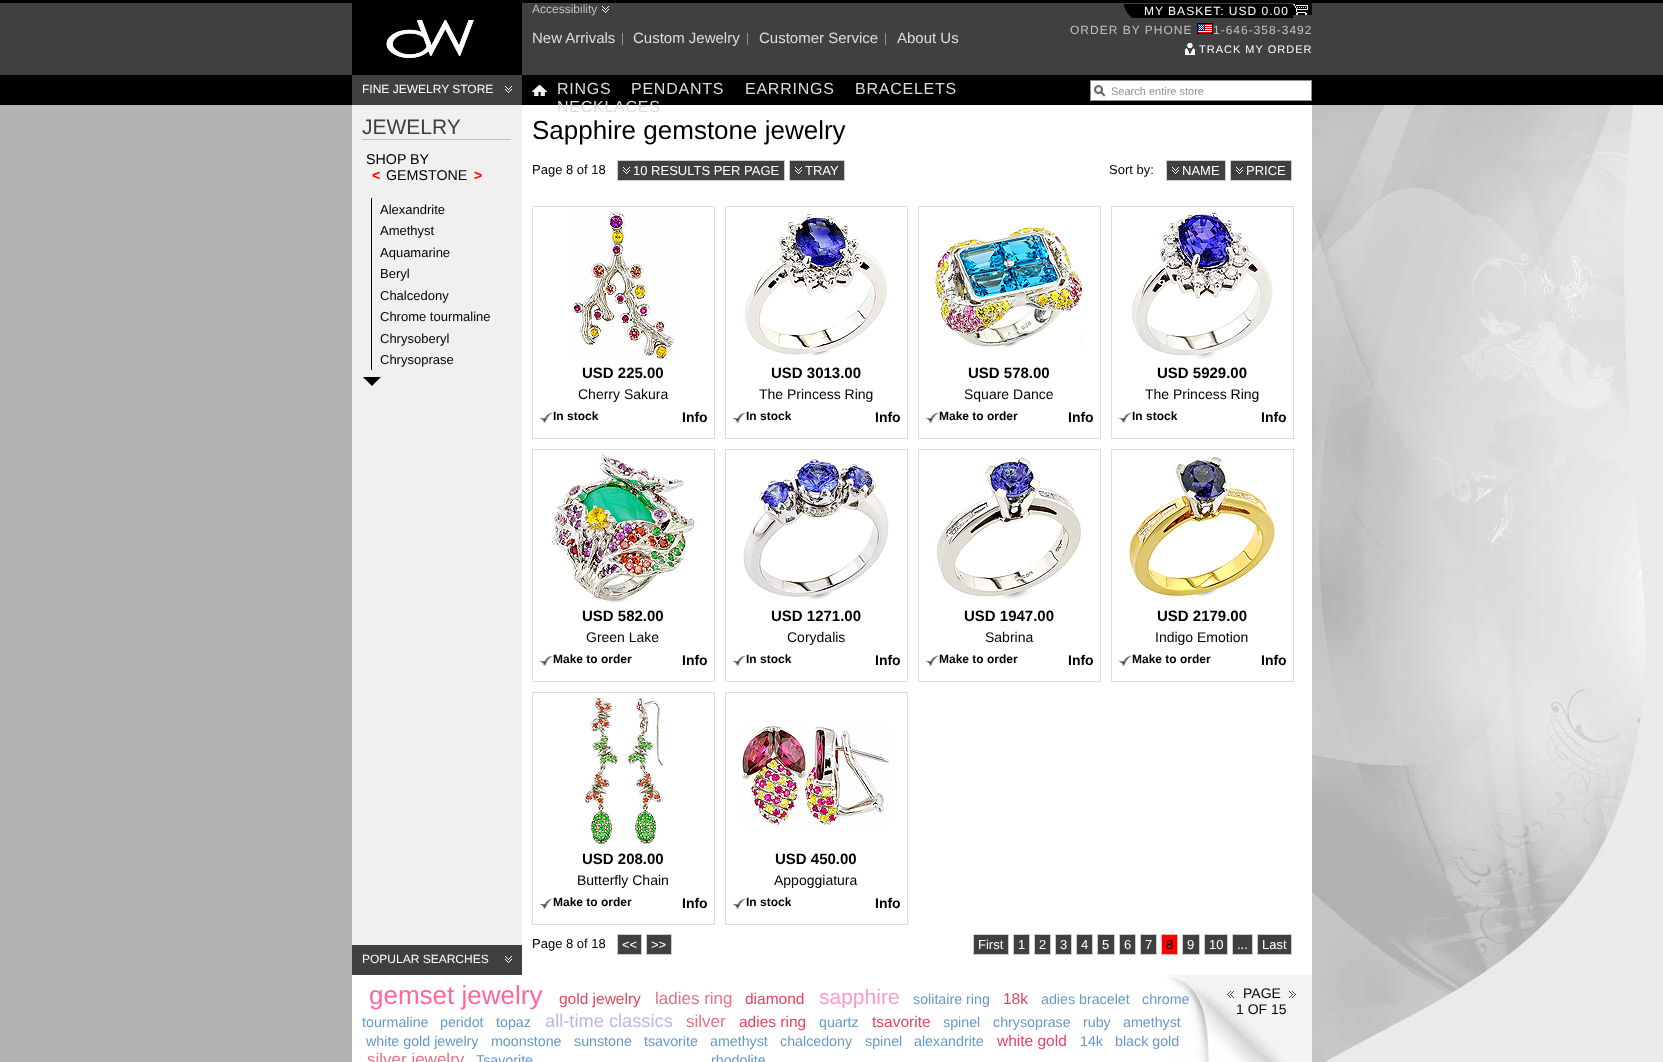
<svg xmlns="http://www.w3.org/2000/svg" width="1663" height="1062">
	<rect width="100%" height="100%" fill="#B2B2B2" />
	<image x="1312" y="105" width="351" height="957" href="assets/img1.png" />
	<image x="0" y="0" width="1663" height="105" href="assets/img2.png" />
	<image x="522" y="0" width="790" height="105" href="assets/img3.png" />
	<rect x="352" y="3" width="170" height="72" fill="#000000" />
	<image x="386" y="20" width="88" height="38" href="assets/img4.png" />
	<text x="532" y="13" font-family="Liberation Sans" font-size="12" fill="#C0C0C0">Accessibility</text>
	<image x="602" y="6" width="7" height="7" href="assets/img5.png" />
	<text x="532" y="43" font-family="Liberation Sans" font-size="15" fill="#DDDDDD">New Arrivals</text>
	<rect x="622" y="33" width="1" height="12" fill="#909090" />
	<text x="633" y="43" font-family="Liberation Sans" font-size="15" fill="#DDDDDD">Custom Jewelry</text>
	<rect x="747" y="33" width="1" height="12" fill="#909090" />
	<text x="759" y="43" font-family="Liberation Sans" font-size="15" fill="#DDDDDD">Customer Service</text>
	<rect x="885" y="33" width="1" height="12" fill="#909090" />
	<text x="897" y="43" font-family="Liberation Sans" font-size="15" fill="#DDDDDD">About Us</text>
	<image x="1124" y="4" width="20" height="14" href="assets/img6.png" />
	<rect x="1144" y="4" width="149" height="14" fill="#000000" />
	<text x="1144" y="15" font-family="Liberation Sans" font-size="12" letter-spacing="1" fill="#FFFFFF">MY BASKET: USD 0.00</text>
	<rect x="1293" y="3" width="19" height="12" fill="#000000" />
	<image x="1293" y="4" width="15" height="11" href="assets/img7.png" />
	<text x="1070" y="34" font-family="Liberation Sans" font-size="12" letter-spacing="1" fill="#C0C0C0">ORDER BY PHONE</text>
	<image x="1197" y="23" width="16" height="11" href="assets/img8.png" />
	<text x="1213" y="34" font-family="Liberation Sans" font-size="12" letter-spacing="1" fill="#C0C0C0">1-646-358-3492</text>
	<image x="1185" y="43" width="10" height="12" href="assets/img9.png" />
	<text x="1199" y="53" font-family="Liberation Sans" font-size="11" letter-spacing="1" fill="#FFFFFF">TRACK MY ORDER</text>
	<rect x="352" y="75" width="170" height="30" fill="#404040" />
	<image x="505" y="86" width="7" height="7" href="assets/img5.png" />
	<text x="362" y="93" font-family="Liberation Sans" font-size="12" fill="#FFFFFF">FINE JEWELRY STORE</text>
	<image x="532" y="85" width="15" height="11" href="assets/img10.png" />
	<g font-family="Liberation Sans" font-size="16" letter-spacing="0.75" fill="#DDDDDD">
		<text x="557" y="94">RINGS</text>
		<text x="631" y="94">PENDANTS</text>
		<text x="745" y="94">EARRINGS</text>
		<text x="855" y="94">BRACELETS</text>
	</g>
	<rect x="522" y="105" width="790" height="870" fill="#FFFFFF" />
	<text x="557" y="112" font-family="Liberation Sans" font-size="16" letter-spacing="0.75" fill="#DDDDDD">NECKLACES</text>
	<rect x="1091" y="81" width="220" height="19" fill="#FFFFFF" />
	<image x="1094" y="85" width="12" height="12" href="assets/img11.png" />
	<rect x="1090.5" y="80.5" width="221" height="20" fill="none" stroke="#909090" />
	<text x="1111" y="95" font-family="Liberation Sans" font-size="11" fill="#909090">Search entire store</text>
	<rect x="352" y="105" width="170" height="840" fill="#F0F0F0" />
	<rect x="362" y="139" width="149" height="1" fill="#C0C0C0" />
	<text x="362" y="134" font-family="Liberation Sans" font-size="21" fill="#404040">JEWELRY</text>
	<text x="366" y="164" font-family="Liberation Sans" font-size="14.25" fill="#000000">SHOP BY</text>
	<text x="372" y="180" font-family="Liberation Sans" font-size="14" font-weight="700" fill="#FF0000">&lt;</text>
	<text x="386" y="180" font-family="Liberation Sans" font-size="14.25" fill="#000000">GEMSTONE</text>
	<text x="474" y="180" font-family="Liberation Sans" font-size="14" font-weight="700" fill="#FF0000">&gt;</text>
	<rect x="371" y="198" width="1" height="172" fill="#000000" />
	<g font-family="Liberation Sans" font-size="13" fill="#000000">
		<text x="380" y="214">Alexandrite</text>
		<text x="380" y="235">Amethyst</text>
		<text x="380" y="257">Aquamarine</text>
		<text x="380" y="278">Beryl</text>
		<text x="380" y="300">Chalcedony</text>
		<text x="380" y="321">Chrome tourmaline</text>
		<text x="380" y="343">Chrysoberyl</text>
		<text x="380" y="364">Chrysoprase</text>
	</g>
	<image x="363" y="377" width="18" height="9" href="assets/img12.png" />
	<text x="532" y="139" font-family="Liberation Sans" font-size="26" fill="#000000">Sapphire gemstone jewelry</text>
	<text x="532" y="174" font-family="Liberation Sans" font-size="13" fill="#000000">Page 8 of 18</text>
	<rect x="618" y="161" width="166" height="19" fill="#404040" />
	<image x="623" y="167" width="7" height="7" href="assets/img5.png" />
	<rect x="617.5" y="160.5" width="167" height="20" fill="none" stroke="#CCCCCC" />
	<text x="633" y="175" font-family="Liberation Sans" font-size="13" fill="#FFFFFF">10 RESULTS PER PAGE</text>
	<rect x="790" y="161" width="54" height="19" fill="#404040" />
	<image x="795" y="167" width="7" height="7" href="assets/img5.png" />
	<rect x="789.5" y="160.5" width="55" height="20" fill="none" stroke="#CCCCCC" />
	<text x="805" y="175" font-family="Liberation Sans" font-size="13" fill="#FFFFFF">TRAY</text>
	<text x="1109" y="174" font-family="Liberation Sans" font-size="13" fill="#000000">Sort by:</text>
	<rect x="1167" y="161" width="58" height="19" fill="#404040" />
	<image x="1172" y="167" width="7" height="7" href="assets/img5.png" />
	<rect x="1166.5" y="160.5" width="59" height="20" fill="none" stroke="#CCCCCC" />
	<text x="1182" y="175" font-family="Liberation Sans" font-size="13" fill="#FFFFFF">NAME</text>
	<rect x="1231" y="161" width="60" height="19" fill="#404040" />
	<image x="1236" y="167" width="7" height="7" href="assets/img5.png" />
	<rect x="1230.5" y="160.5" width="61" height="20" fill="none" stroke="#CCCCCC" />
	<text x="1246" y="175" font-family="Liberation Sans" font-size="13" fill="#FFFFFF">PRICE</text>
	<rect x="532.5" y="206.5" width="182" height="232" fill="none" stroke="#DDDDDD" />
	<image x="572" y="211" width="103" height="149" href="assets/img13.png" />
	<text x="582" y="378" font-family="Liberation Sans" font-size="15" font-weight="700" fill="#000000">USD 225.00</text>
	<text x="578" y="399" font-family="Liberation Sans" font-size="14" fill="#000000">Cherry Sakura</text>
	<image x="539" y="412" width="14" height="11" href="assets/img14.png" />
	<text x="553" y="420" font-family="Liberation Sans" font-size="12" font-weight="700" fill="#000000">In stock</text>
	<text x="682" y="422" font-family="Liberation Sans" font-size="14" font-weight="700" fill="#000000">Info</text>
	<rect x="725.5" y="206.5" width="182" height="232" fill="none" stroke="#DDDDDD" />
	<image x="744" y="212" width="143" height="144" href="assets/img15.png" />
	<text x="771" y="378" font-family="Liberation Sans" font-size="15" font-weight="700" fill="#000000">USD 3013.00</text>
	<text x="759" y="399" font-family="Liberation Sans" font-size="14" fill="#000000">The Princess Ring</text>
	<image x="732" y="412" width="14" height="11" href="assets/img14.png" />
	<text x="746" y="420" font-family="Liberation Sans" font-size="12" font-weight="700" fill="#000000">In stock</text>
	<text x="875" y="422" font-family="Liberation Sans" font-size="14" font-weight="700" fill="#000000">Info</text>
	<rect x="918.5" y="206.5" width="182" height="232" fill="none" stroke="#DDDDDD" />
	<image x="934" y="227" width="150" height="121" href="assets/img16.png" />
	<text x="968" y="378" font-family="Liberation Sans" font-size="15" font-weight="700" fill="#000000">USD 578.00</text>
	<text x="964" y="399" font-family="Liberation Sans" font-size="14" fill="#000000">Square Dance</text>
	<image x="925" y="412" width="14" height="11" href="assets/img14.png" />
	<text x="939" y="420" font-family="Liberation Sans" font-size="12" font-weight="700" fill="#000000">Make to order</text>
	<text x="1068" y="422" font-family="Liberation Sans" font-size="14" font-weight="700" fill="#000000">Info</text>
	<rect x="1111.5" y="206.5" width="182" height="232" fill="none" stroke="#DDDDDD" />
	<image x="1132" y="210" width="141" height="149" href="assets/img17.png" />
	<text x="1157" y="378" font-family="Liberation Sans" font-size="15" font-weight="700" fill="#000000">USD 5929.00</text>
	<text x="1145" y="399" font-family="Liberation Sans" font-size="14" fill="#000000">The Princess Ring</text>
	<image x="1118" y="412" width="14" height="11" href="assets/img14.png" />
	<text x="1132" y="420" font-family="Liberation Sans" font-size="12" font-weight="700" fill="#000000">In stock</text>
	<text x="1261" y="422" font-family="Liberation Sans" font-size="14" font-weight="700" fill="#000000">Info</text>
	<rect x="532.5" y="449.5" width="182" height="232" fill="none" stroke="#DDDDDD" />
	<image x="551" y="454" width="144" height="149" href="assets/img18.png" />
	<text x="582" y="621" font-family="Liberation Sans" font-size="15" font-weight="700" fill="#000000">USD 582.00</text>
	<text x="586" y="642" font-family="Liberation Sans" font-size="14" fill="#000000">Green Lake</text>
	<image x="539" y="655" width="14" height="11" href="assets/img14.png" />
	<text x="553" y="663" font-family="Liberation Sans" font-size="12" font-weight="700" fill="#000000">Make to order</text>
	<text x="682" y="665" font-family="Liberation Sans" font-size="14" font-weight="700" fill="#000000">Info</text>
	<rect x="725.5" y="449.5" width="182" height="232" fill="none" stroke="#DDDDDD" />
	<image x="743" y="458" width="146" height="142" href="assets/img19.png" />
	<text x="771" y="621" font-family="Liberation Sans" font-size="15" font-weight="700" fill="#000000">USD 1271.00</text>
	<text x="787" y="642" font-family="Liberation Sans" font-size="14" fill="#000000">Corydalis</text>
	<image x="732" y="655" width="14" height="11" href="assets/img14.png" />
	<text x="746" y="663" font-family="Liberation Sans" font-size="12" font-weight="700" fill="#000000">In stock</text>
	<text x="875" y="665" font-family="Liberation Sans" font-size="14" font-weight="700" fill="#000000">Info</text>
	<rect x="918.5" y="449.5" width="182" height="232" fill="none" stroke="#DDDDDD" />
	<image x="937" y="457" width="144" height="143" href="assets/img20.png" />
	<text x="964" y="621" font-family="Liberation Sans" font-size="15" font-weight="700" fill="#000000">USD 1947.00</text>
	<text x="985" y="642" font-family="Liberation Sans" font-size="14" fill="#000000">Sabrina</text>
	<image x="925" y="655" width="14" height="11" href="assets/img14.png" />
	<text x="939" y="663" font-family="Liberation Sans" font-size="12" font-weight="700" fill="#000000">Make to order</text>
	<text x="1068" y="665" font-family="Liberation Sans" font-size="14" font-weight="700" fill="#000000">Info</text>
	<rect x="1111.5" y="449.5" width="182" height="232" fill="none" stroke="#DDDDDD" />
	<image x="1127" y="455" width="150" height="142" href="assets/img21.png" />
	<text x="1157" y="621" font-family="Liberation Sans" font-size="15" font-weight="700" fill="#000000">USD 2179.00</text>
	<text x="1155" y="642" font-family="Liberation Sans" font-size="14" fill="#000000">Indigo Emotion</text>
	<image x="1118" y="655" width="14" height="11" href="assets/img14.png" />
	<text x="1132" y="663" font-family="Liberation Sans" font-size="12" font-weight="700" fill="#000000">Make to order</text>
	<text x="1261" y="665" font-family="Liberation Sans" font-size="14" font-weight="700" fill="#000000">Info</text>
	<rect x="532.5" y="692.5" width="182" height="232" fill="none" stroke="#DDDDDD" />
	<image x="584" y="697" width="80" height="147" href="assets/img22.png" />
	<text x="582" y="864" font-family="Liberation Sans" font-size="15" font-weight="700" fill="#000000">USD 208.00</text>
	<text x="577" y="885" font-family="Liberation Sans" font-size="14" fill="#000000">Butterfly Chain</text>
	<image x="539" y="898" width="14" height="11" href="assets/img14.png" />
	<text x="553" y="906" font-family="Liberation Sans" font-size="12" font-weight="700" fill="#000000">Make to order</text>
	<text x="682" y="908" font-family="Liberation Sans" font-size="14" font-weight="700" fill="#000000">Info</text>
	<rect x="725.5" y="692.5" width="182" height="232" fill="none" stroke="#DDDDDD" />
	<image x="741" y="726" width="150" height="100" href="assets/img23.png" />
	<text x="775" y="864" font-family="Liberation Sans" font-size="15" font-weight="700" fill="#000000">USD 450.00</text>
	<text x="774" y="885" font-family="Liberation Sans" font-size="14" fill="#000000">Appoggiatura</text>
	<image x="732" y="898" width="14" height="11" href="assets/img14.png" />
	<text x="746" y="906" font-family="Liberation Sans" font-size="12" font-weight="700" fill="#000000">In stock</text>
	<text x="875" y="908" font-family="Liberation Sans" font-size="14" font-weight="700" fill="#000000">Info</text>
	<text x="532" y="948" font-family="Liberation Sans" font-size="13" fill="#000000">Page 8 of 18</text>
	<rect x="617.5" y="934.5" width="24" height="20" fill="#404040" stroke="#CCCCCC" />
	<text x="622" y="949" font-family="Liberation Sans" font-size="13" fill="#FFFFFF">&lt;&lt;</text>
	<rect x="646.5" y="934.5" width="25" height="20" fill="#404040" stroke="#CCCCCC" />
	<text x="651" y="949" font-family="Liberation Sans" font-size="13" fill="#FFFFFF">&gt;&gt;</text>
	<rect x="973.5" y="934.5" width="35" height="20" fill="#404040" stroke="#CCCCCC" />
	<text x="978" y="949" font-family="Liberation Sans" font-size="13" fill="#FFFFFF">First</text>
	<rect x="1013.5" y="934.5" width="16" height="20" fill="#404040" stroke="#CCCCCC" />
	<text x="1018" y="949" font-family="Liberation Sans" font-size="13" fill="#FFFFFF">1</text>
	<rect x="1034.5" y="934.5" width="16" height="20" fill="#404040" stroke="#CCCCCC" />
	<text x="1039" y="949" font-family="Liberation Sans" font-size="13" fill="#FFFFFF">2</text>
	<rect x="1055.5" y="934.5" width="16" height="20" fill="#404040" stroke="#CCCCCC" />
	<text x="1060" y="949" font-family="Liberation Sans" font-size="13" fill="#FFFFFF">3</text>
	<rect x="1076.5" y="934.5" width="16" height="20" fill="#404040" stroke="#CCCCCC" />
	<text x="1081" y="949" font-family="Liberation Sans" font-size="13" fill="#FFFFFF">4</text>
	<rect x="1097.5" y="934.5" width="17" height="20" fill="#404040" stroke="#CCCCCC" />
	<text x="1102" y="949" font-family="Liberation Sans" font-size="13" fill="#FFFFFF">5</text>
	<rect x="1119.5" y="934.5" width="16" height="20" fill="#404040" stroke="#CCCCCC" />
	<text x="1124" y="949" font-family="Liberation Sans" font-size="13" fill="#FFFFFF">6</text>
	<rect x="1140.5" y="934.5" width="16" height="20" fill="#404040" stroke="#CCCCCC" />
	<text x="1145" y="949" font-family="Liberation Sans" font-size="13" fill="#FFFFFF">7</text>
	<rect x="1161.5" y="934.5" width="16" height="20" fill="#FF0000" stroke="#FFB299" />
	<text x="1166" y="949" font-family="Liberation Sans" font-size="13" fill="#000000">8</text>
	<rect x="1182.5" y="934.5" width="17" height="20" fill="#404040" stroke="#CCCCCC" />
	<text x="1187" y="949" font-family="Liberation Sans" font-size="13" fill="#FFFFFF">9</text>
	<rect x="1204.5" y="934.5" width="23" height="20" fill="#404040" stroke="#CCCCCC" />
	<text x="1209" y="949" font-family="Liberation Sans" font-size="13" fill="#FFFFFF">10</text>
	<rect x="1232.5" y="934.5" width="20" height="20" fill="#404040" stroke="#CCCCCC" />
	<text x="1237" y="949" font-family="Liberation Sans" font-size="13" fill="#FFFFFF">...</text>
	<rect x="1257.5" y="934.5" width="34" height="20" fill="#404040" stroke="#CCCCCC" />
	<text x="1262" y="949" font-family="Liberation Sans" font-size="13" fill="#FFFFFF">Last</text>
	<rect x="352" y="945" width="170" height="30" fill="#404040" />
	<image x="505" y="956" width="7" height="7" href="assets/img5.png" />
	<text x="362" y="963" font-family="Liberation Sans" font-size="12" fill="#FFFFFF">POPULAR SEARCHES</text>
	<rect x="352" y="975" width="815" height="87" fill="#FFFFFF" />
	<image x="1167" y="975" width="145" height="87" href="assets/img24.png" />
	<text x="369" y="1004" font-family="Liberation Sans" font-size="26" fill="#FF6699">gemset jewelry</text>
	<text x="559" y="1004" font-family="Liberation Sans" font-size="15.5" fill="#E54560">gold jewelry</text>
	<text x="655" y="1004" font-family="Liberation Sans" font-size="17" fill="#E57386">ladies ring</text>
	<text x="745" y="1004" font-family="Liberation Sans" font-size="15.5" fill="#E54560">diamond</text>
	<text x="819" y="1004" font-family="Liberation Sans" font-size="21" fill="#FF99CC">sapphire</text>
	<text x="913" y="1004" font-family="Liberation Sans" font-size="14.25" fill="#6699CC">solitaire ring</text>
	<text x="1003" y="1004" font-family="Liberation Sans" font-size="15.5" fill="#E54560">18k</text>
	<g font-family="Liberation Sans" font-size="14.25" fill="#6699CC">
		<text x="1041" y="1004">adies bracelet</text>
		<text x="1142" y="1004">chrome</text>
		<text x="362" y="1027">tourmaline</text>
		<text x="440" y="1027">peridot</text>
		<text x="496" y="1027">topaz</text>
	</g>
	<text x="545" y="1027" font-family="Liberation Sans" font-size="18.25" fill="#B8B8E5">all-time classics</text>
	<text x="686" y="1027" font-family="Liberation Sans" font-size="17" fill="#E57386">silver</text>
	<text x="739" y="1027" font-family="Liberation Sans" font-size="15.5" fill="#E54560">adies ring</text>
	<text x="819" y="1027" font-family="Liberation Sans" font-size="14.25" fill="#6699CC">quartz</text>
	<text x="872" y="1027" font-family="Liberation Sans" font-size="15.5" fill="#E54560">tsavorite</text>
	<g font-family="Liberation Sans" font-size="14.25" fill="#6699CC">
		<text x="943" y="1027">spinel</text>
		<text x="993" y="1027">chrysoprase</text>
		<text x="1083" y="1027">ruby</text>
		<text x="1123" y="1027">amethyst</text>
		<text x="366" y="1046">white gold jewelry</text>
		<text x="491" y="1046">moonstone</text>
		<text x="574" y="1046">sunstone</text>
		<text x="644" y="1046">tsavorite</text>
		<text x="710" y="1046">amethyst</text>
		<text x="780" y="1046">chalcedony</text>
		<text x="865" y="1046">spinel</text>
		<text x="914" y="1046">alexandrite</text>
	</g>
	<text x="997" y="1046" font-family="Liberation Sans" font-size="15.5" fill="#E54560">white gold</text>
	<g font-family="Liberation Sans" font-size="14.25" fill="#6699CC">
		<text x="1080" y="1046">14k</text>
		<text x="1115" y="1046">black gold</text>
	</g>
	<text x="367" y="1065" font-family="Liberation Sans" font-size="17" fill="#E57386">silver jewelry</text>
	<g font-family="Liberation Sans" font-size="14.25" fill="#6699CC">
		<text x="476" y="1065">Tsavorite</text>
		<text x="711" y="1065">rhodolite</text>
	</g>
	<image x="1227" y="991" width="7" height="7" href="assets/img25.png" />
	<text x="1243" y="998" font-family="Liberation Sans" font-size="14" fill="#000000">PAGE</text>
	<image x="1289" y="991" width="7" height="7" href="assets/img26.png" />
	<text x="1236" y="1014" font-family="Liberation Sans" font-size="14" fill="#000000">1 OF 15</text>
</svg>
